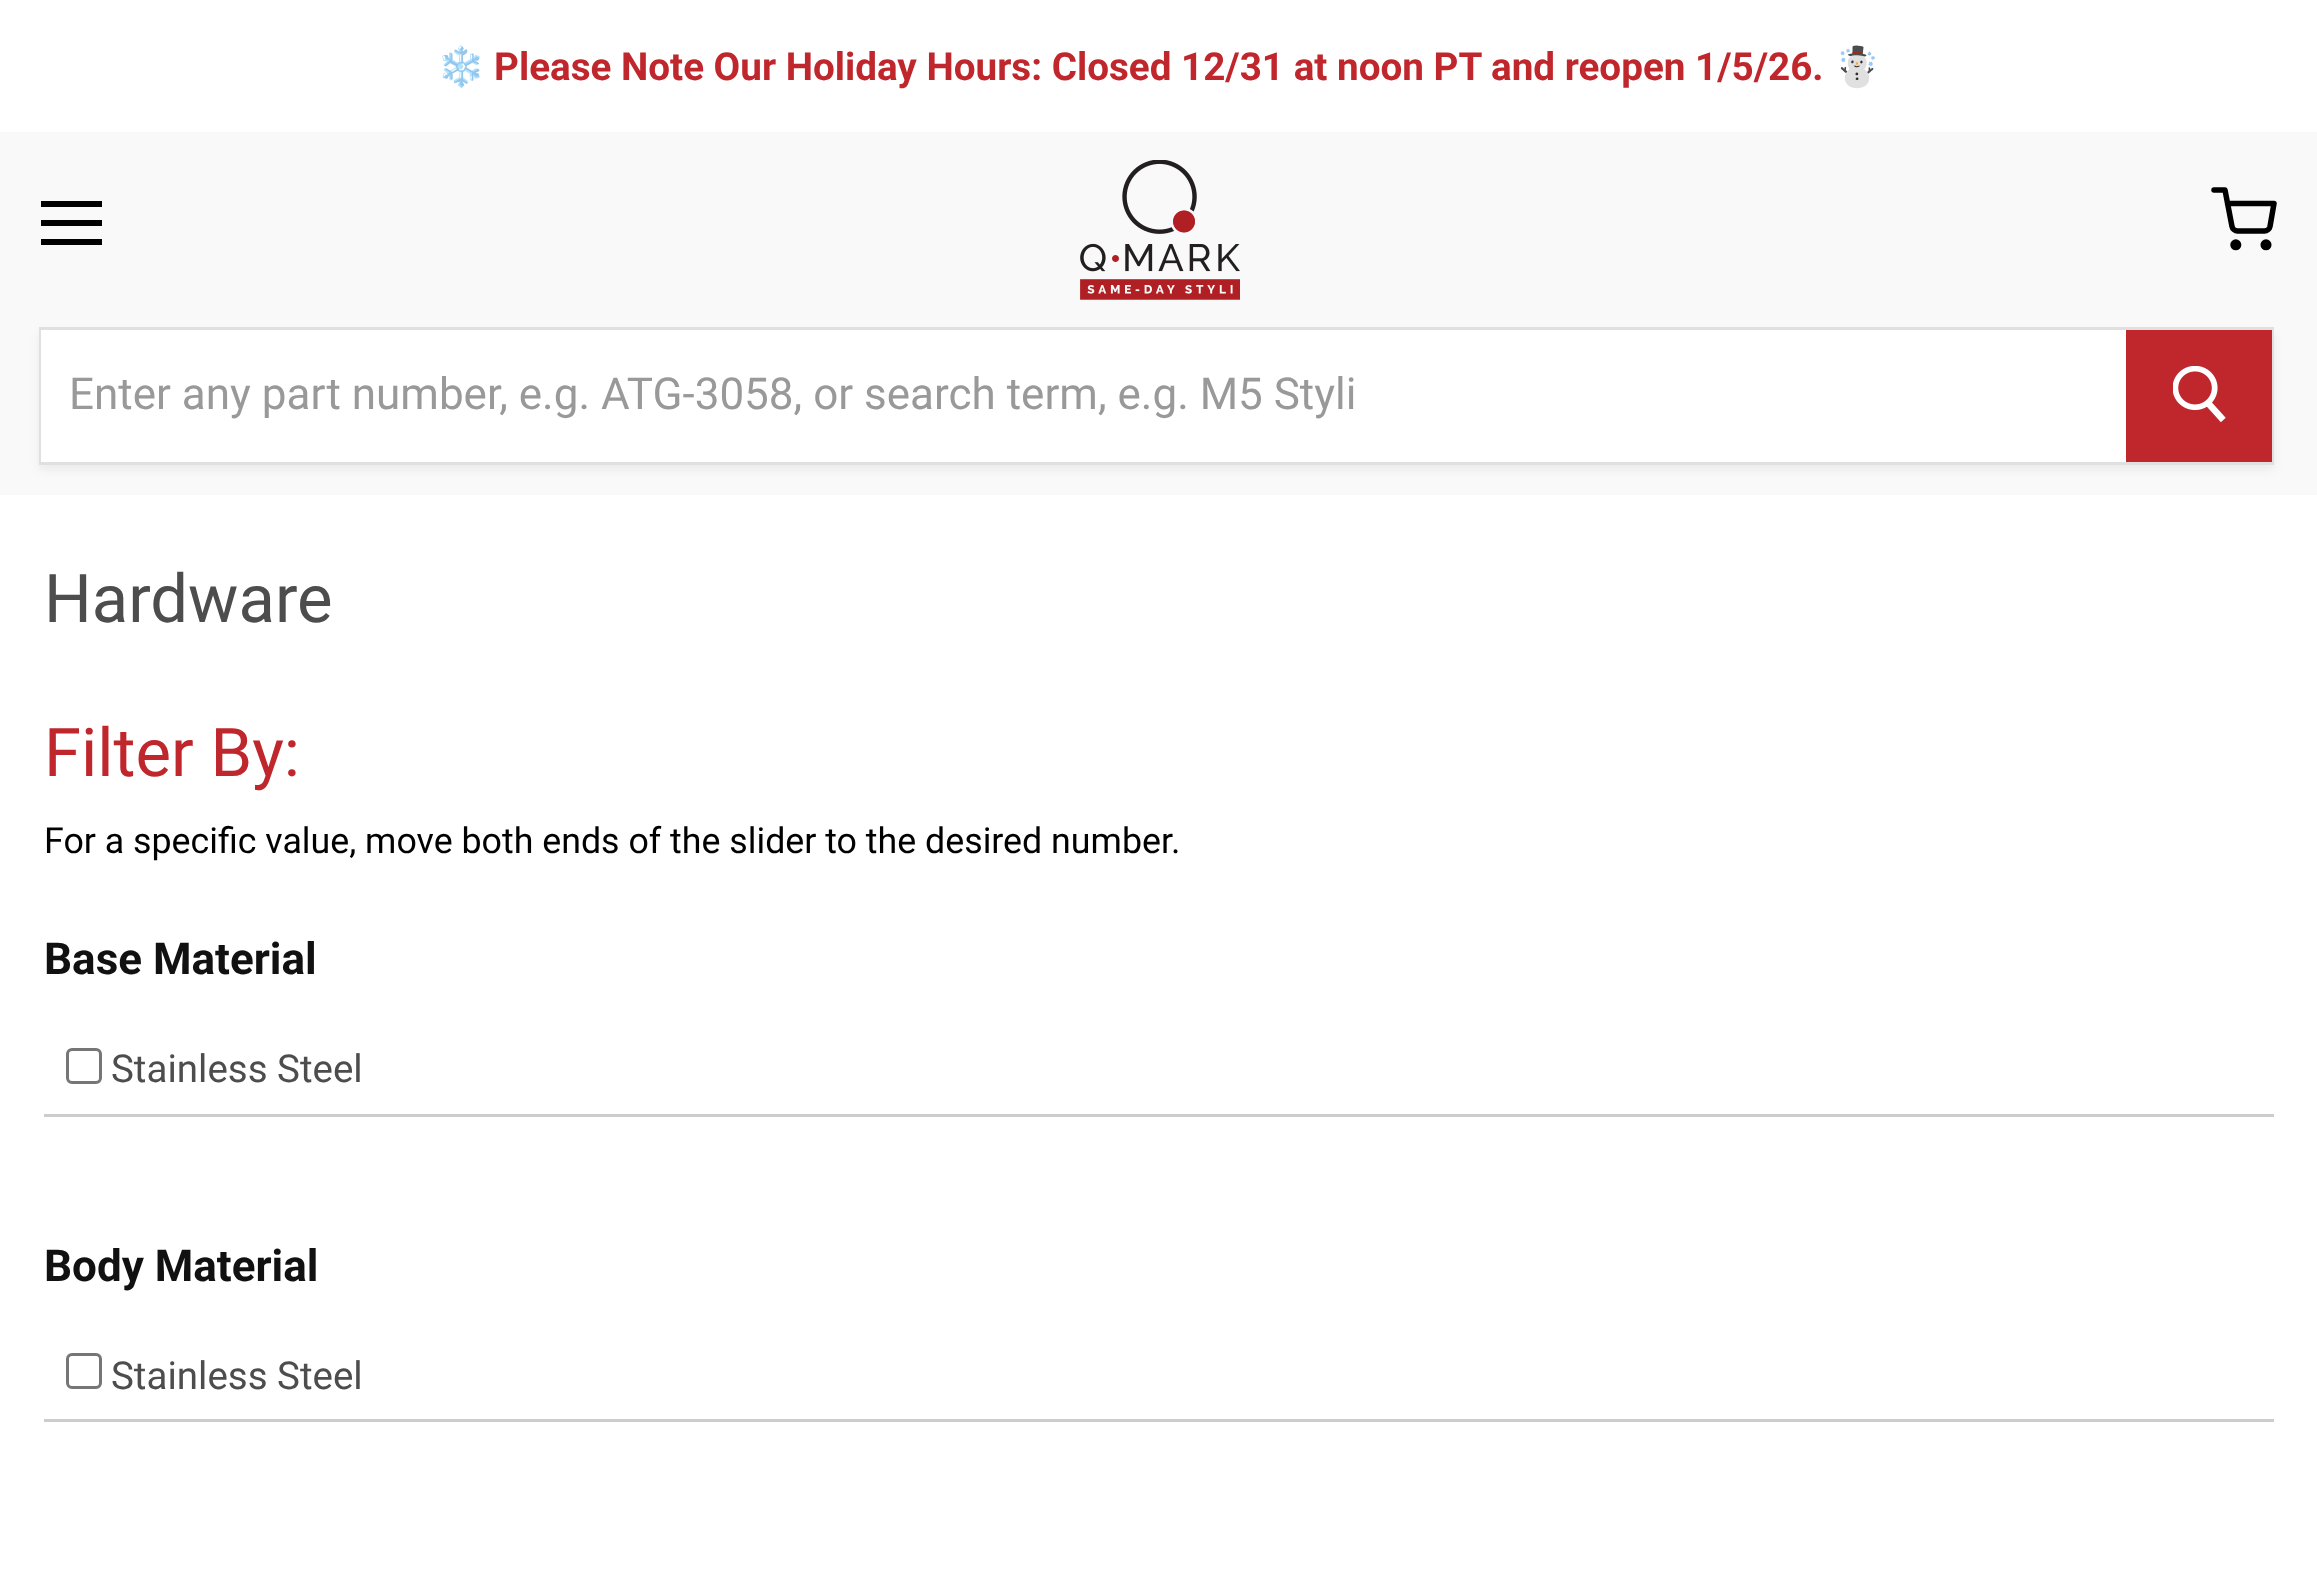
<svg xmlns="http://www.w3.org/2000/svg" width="2317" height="1575">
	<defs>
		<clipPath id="clip1"><path d="M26 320H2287V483H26ZM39 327H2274V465H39Z" clip-rule="evenodd" /></clipPath>
	</defs>
	<rect width="100%" height="100%" fill="#FFFFFF" />
	<text x="437" y="80" font-family="Noto Color Emoji" font-size="38.65" font-weight="700" fill="#C0272D">❄️</text>
	<text x="494" y="80" font-family="Roboto" font-size="38.65" font-weight="700" fill="#C0272D">Please Note Our Holiday Hours: Closed 12/31 at noon PT and reopen 1/5/26.</text>
	<text x="1833" y="80" font-family="Noto Color Emoji" font-size="38.65" font-weight="700" fill="#C0272D">☃️</text>
	<rect x="0" y="132" width="2317" height="363" fill="#F9F9F9" />
	<rect x="41" y="201" width="61" height="6" fill="#000000" />
	<rect x="41" y="220" width="61" height="6" fill="#000000" />
	<rect x="41" y="239" width="61" height="6" fill="#000000" />
	<image x="1080" y="160" width="160" height="140" href="assets/img1.png" />
	<circle cx="2235.8" cy="244.8" r="2.8" fill="none" stroke="#000000" stroke-width="5.5" />
	<circle cx="2266" cy="244.8" r="2.8" fill="none" stroke="#000000" stroke-width="5.5" />
	<path d="M2214 190H2225L2232 226.5C2232.5 229 2235 231 2237.5 231H2264.5C2267 231 2269.5 229 2270 226.5L2274 203.5H2227.5" fill="none" stroke="#000000" stroke-width="5.5" stroke-linecap="round" stroke-linejoin="round" />
	<g clip-path="url(#clip1)">
		<rect x="39" y="333" width="2235" height="137" fill="#7F7F7F" fill-opacity="0.11" filter="blur(4px)" />
	</g>
	<rect x="40.5" y="328.5" width="2232" height="135" fill="none" stroke="#7F7F7F" stroke-opacity="0.2" stroke-width="3" />
	<rect x="41" y="330" width="2085" height="132" fill="#FFFFFF" />
	<text x="69" y="409" font-family="Roboto" font-size="44" fill="#999999">Enter any part number, e.g. ATG-3058, or search term, e.g. M5 Styli</text>
	<rect x="2126" y="330" width="146" height="132" fill="#C0272D" />
	<image x="2173" y="366" width="53" height="57" href="assets/img2.png" />
	<text x="44" y="622" font-family="Roboto" font-size="67" fill="#4D4D4D">Hardware</text>
	<text x="44" y="776" font-family="Roboto" font-size="67" fill="#C0272D">Filter By:</text>
	<text x="44" y="853" font-family="Roboto" font-size="35.75" fill="#000000">For a specific value, move both ends of the slider to the desired number.</text>
	<text x="44" y="974" font-family="Roboto" font-size="44" font-weight="700" fill="#111111">Base Material</text>
	<rect x="44" y="1114" width="2230" height="3" fill="#CCCCCC" />
	<rect x="67.5" y="1049.5" width="33" height="33" rx="4.5" fill="none" stroke="#767676" stroke-width="3" />
	<text x="111" y="1082" font-family="Roboto" font-size="38.5" fill="#4D4D4D">Stainless Steel</text>
	<text x="44" y="1281" font-family="Roboto" font-size="44" font-weight="700" fill="#111111">Body Material</text>
	<rect x="44" y="1419" width="2230" height="3" fill="#CCCCCC" />
	<rect x="67.5" y="1354.5" width="33" height="33" rx="4.5" fill="none" stroke="#767676" stroke-width="3" />
	<text x="111" y="1389" font-family="Roboto" font-size="38.5" fill="#4D4D4D">Stainless Steel</text>
</svg>
